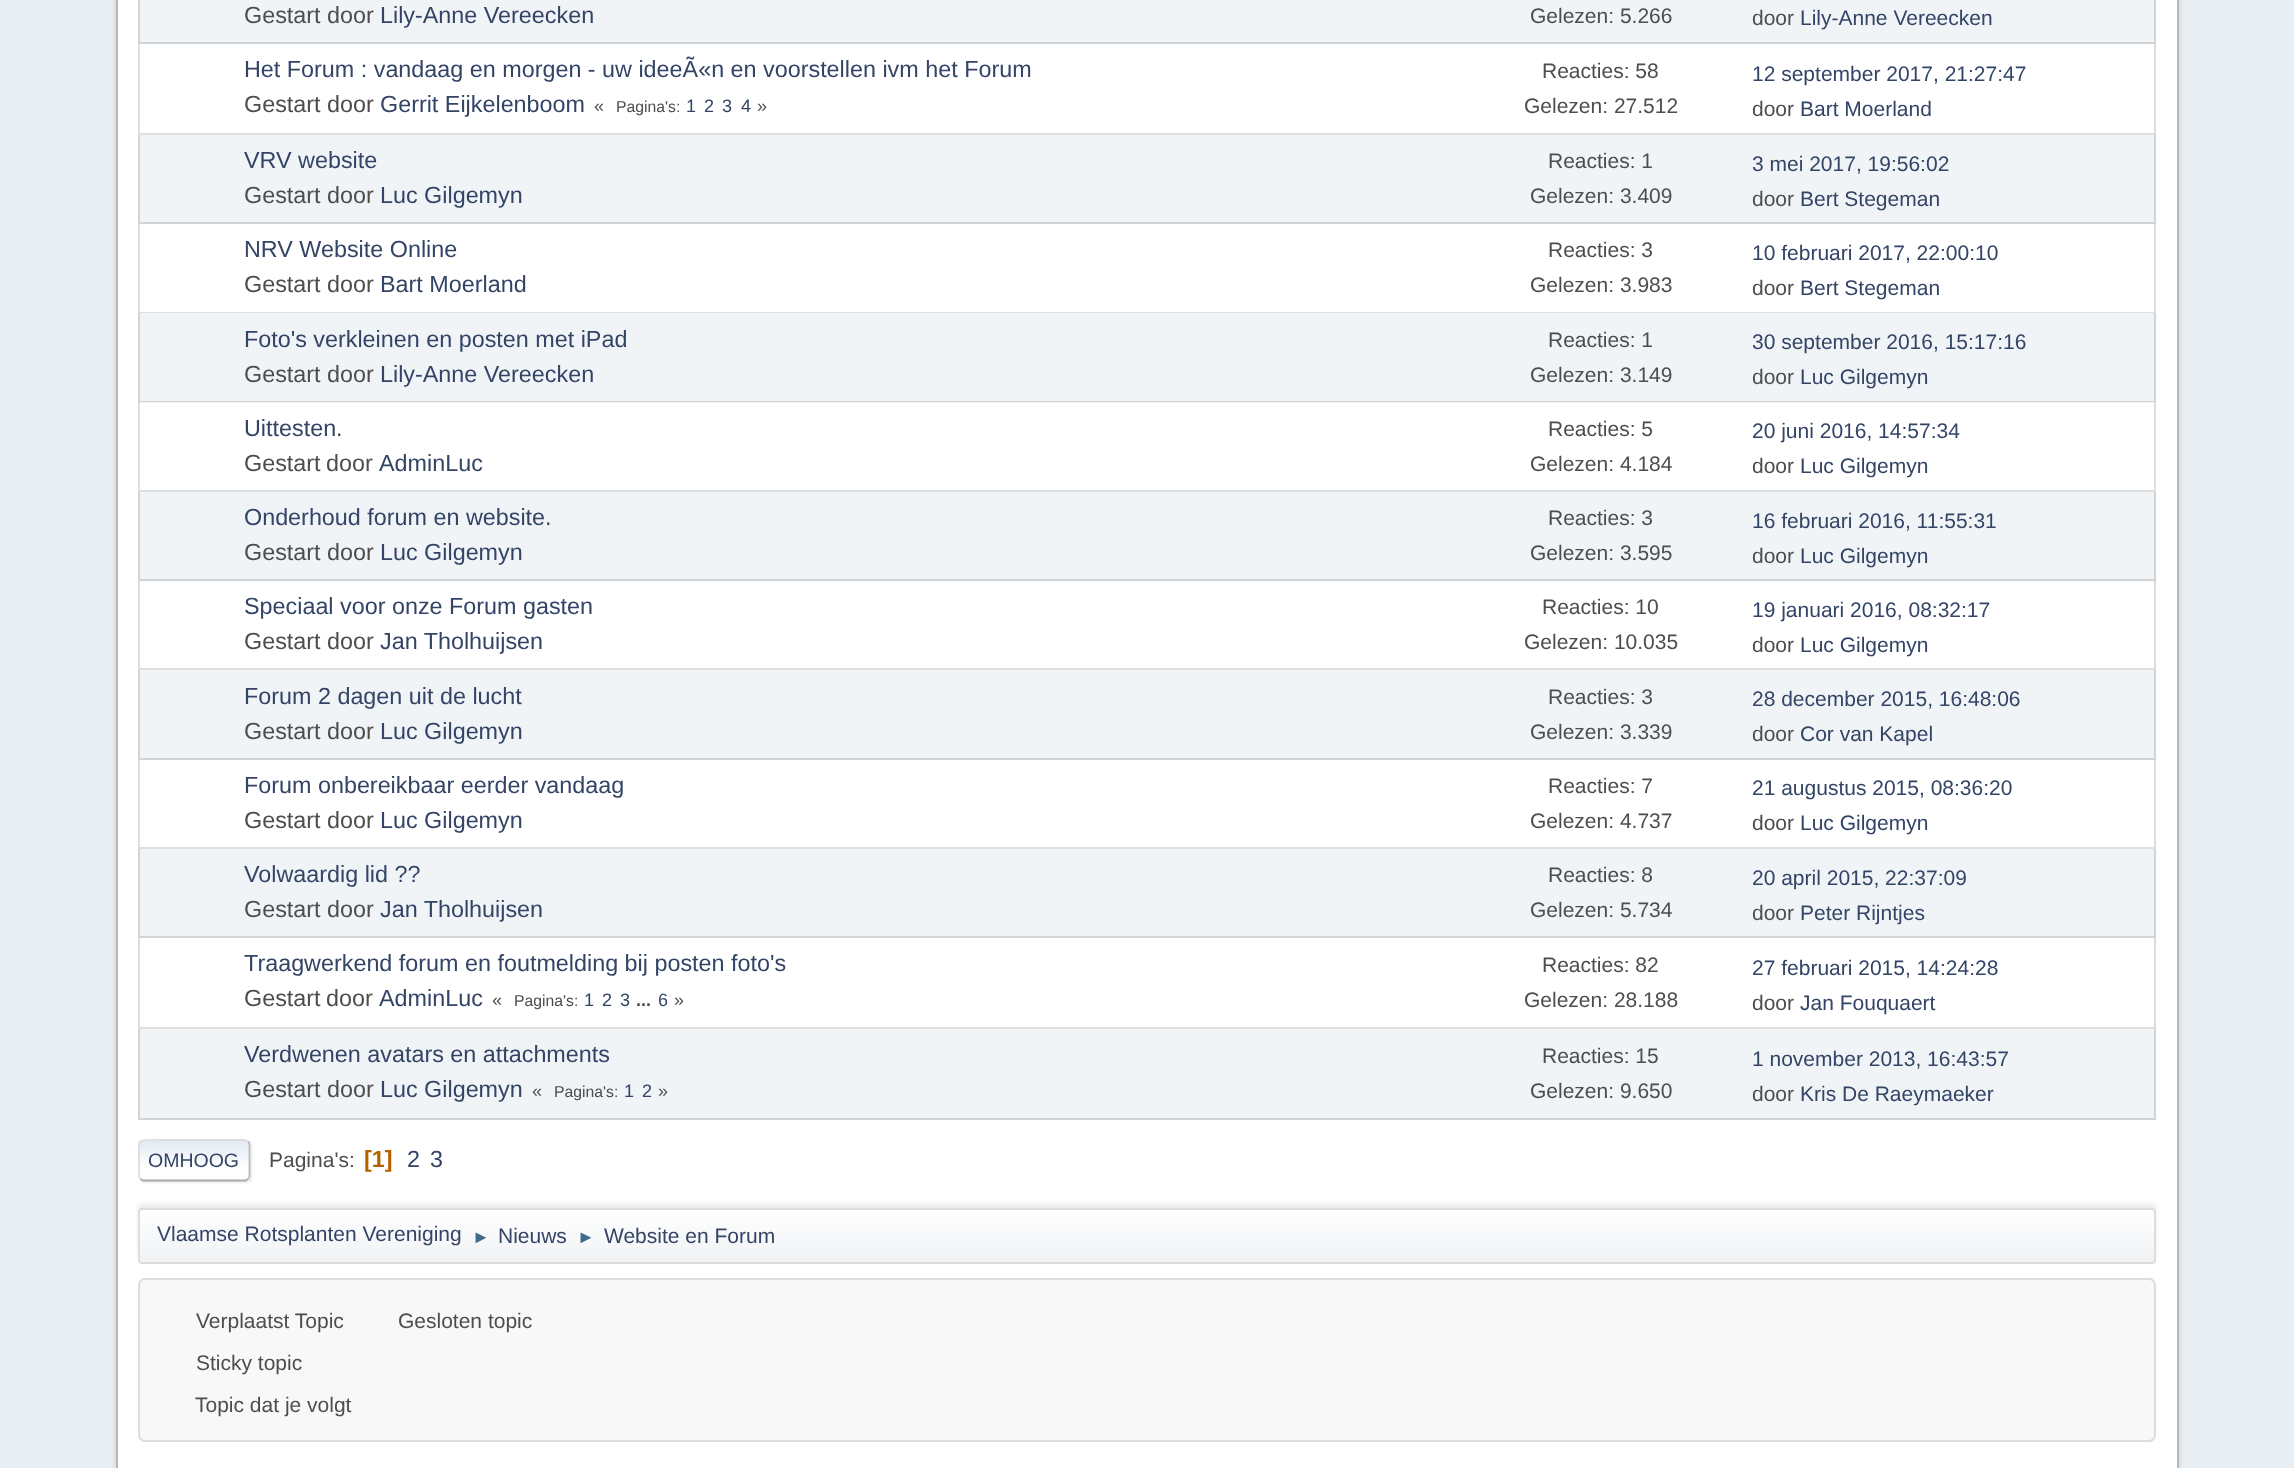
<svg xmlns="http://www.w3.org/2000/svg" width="2294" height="1468">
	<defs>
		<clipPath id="clip1"><rect x="138" y="1139" width="112" height="42" rx="5" /></clipPath>
		<linearGradient id="g1" gradientUnits="userSpaceOnUse" x1="194" y1="1141" x2="194" y2="1180"><stop offset="0" stop-color="#E2E9F3" /><stop offset="0.7" stop-color="#FFFFFF" /></linearGradient>
		<clipPath id="clip2"><rect x="138" y="1208" width="2018" height="56" rx="4" /></clipPath>
		<linearGradient id="g2" gradientUnits="userSpaceOnUse" x1="1147" y1="1209" x2="1147" y2="1262"><stop offset="0" stop-color="#FFFFFF" /><stop offset="0.95" stop-color="#F1F3F5" /></linearGradient>
	</defs>
	<rect width="100%" height="100%" fill="#E9EEF2" />
	<rect x="116" y="-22" width="2063" height="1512" rx="14" fill="#000000" fill-opacity="0.14" filter="blur(2.5px)" />
	<rect x="117" y="-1" width="2061" height="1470" fill="#FFFFFF" stroke="#B8B8B8" stroke-width="2" />
	<rect x="138" y="0" width="2018" height="44" fill="#F0F4F7" />
	<path d="M2156-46V44L2154 42V-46Z" fill="#D1D4D7" />
	<path d="M2156 44H138L140 42H2154Z" fill="#000000" fill-opacity="0.13" />
	<path d="M138 44V-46H140V42Z" fill="#000000" fill-opacity="0.13" />
	<text x="244" y="23" font-family="Liberation Sans" font-size="23.35" fill="#4D4D4D">Gestart door</text>
	<text x="380" y="23" font-family="Liberation Sans" font-size="23.35" fill="#334466">Lily-Anne Vereecken</text>
	<g font-family="Liberation Sans" font-size="21" fill="#4D4D4D">
		<text x="1530" y="23">Gelezen: 5.266</text>
		<text x="1752" y="25">door</text>
	</g>
	<text x="1800" y="25" font-family="Liberation Sans" font-size="21" fill="#334466">Lily-Anne Vereecken</text>
	<path d="M2156 44V135L2154 133V44Z" fill="#DCDCDC" />
	<path d="M2156 135H138L140 133H2154Z" fill="#000000" fill-opacity="0.13" />
	<path d="M138 135V44H140V133Z" fill="#000000" fill-opacity="0.13" />
	<text x="244" y="77" font-family="Liberation Sans" font-size="23.35" fill="#334466">Het Forum : vandaag en morgen - uw ideeÃ«n en voorstellen ivm het Forum</text>
	<text x="244" y="112" font-family="Liberation Sans" font-size="23.35" fill="#4D4D4D">Gestart door</text>
	<text x="380" y="112" font-family="Liberation Sans" font-size="23.35" fill="#334466">Gerrit Eijkelenboom</text>
	<text x="594" y="112" font-family="Liberation Sans" font-size="18" fill="#4D4D4D">«</text>
	<text x="616" y="112" font-family="Liberation Sans" font-size="15.75" fill="#4D4D4D">Pagina's:</text>
	<g font-family="Liberation Sans" font-size="18" fill="#334466">
		<text x="686" y="112">1</text>
		<text x="704" y="112">2</text>
		<text x="722" y="112">3</text>
		<text x="741" y="112">4</text>
	</g>
	<text x="757" y="112" font-family="Liberation Sans" font-size="18" fill="#4D4D4D">»</text>
	<g font-family="Liberation Sans" font-size="21" fill="#4D4D4D">
		<text x="1542" y="78">Reacties: 58</text>
		<text x="1524" y="113">Gelezen: 27.512</text>
	</g>
	<text x="1752" y="81" font-family="Liberation Sans" font-size="21" fill="#334466">12 september 2017, 21:27:47</text>
	<text x="1752" y="116" font-family="Liberation Sans" font-size="21" fill="#4D4D4D">door</text>
	<text x="1800" y="116" font-family="Liberation Sans" font-size="21" fill="#334466">Bart Moerland</text>
	<rect x="138" y="135" width="2018" height="89" fill="#F0F4F7" />
	<path d="M2156 135V224L2154 222V135Z" fill="#D1D4D7" />
	<path d="M2156 224H138L140 222H2154Z" fill="#000000" fill-opacity="0.13" />
	<path d="M138 224V135H140V222Z" fill="#000000" fill-opacity="0.13" />
	<text x="244" y="168" font-family="Liberation Sans" font-size="23.35" fill="#334466">VRV website</text>
	<text x="244" y="203" font-family="Liberation Sans" font-size="23.35" fill="#4D4D4D">Gestart door</text>
	<text x="380" y="203" font-family="Liberation Sans" font-size="23.35" fill="#334466">Luc Gilgemyn</text>
	<g font-family="Liberation Sans" font-size="21" fill="#4D4D4D">
		<text x="1548" y="168">Reacties: 1</text>
		<text x="1530" y="203">Gelezen: 3.409</text>
	</g>
	<text x="1752" y="171" font-family="Liberation Sans" font-size="21" fill="#334466">3 mei 2017, 19:56:02</text>
	<text x="1752" y="206" font-family="Liberation Sans" font-size="21" fill="#4D4D4D">door</text>
	<text x="1800" y="206" font-family="Liberation Sans" font-size="21" fill="#334466">Bert Stegeman</text>
	<path d="M2156 224V313L2154 312V224Z" fill="#DCDCDC" />
	<path d="M2156 313H138L140 312H2154Z" fill="#000000" fill-opacity="0.13" />
	<path d="M138 313V224H140V312Z" fill="#000000" fill-opacity="0.13" />
	<text x="244" y="257" font-family="Liberation Sans" font-size="23.35" fill="#334466">NRV Website Online</text>
	<text x="244" y="292" font-family="Liberation Sans" font-size="23.35" fill="#4D4D4D">Gestart door</text>
	<text x="380" y="292" font-family="Liberation Sans" font-size="23.35" fill="#334466">Bart Moerland</text>
	<g font-family="Liberation Sans" font-size="21" fill="#4D4D4D">
		<text x="1548" y="257">Reacties: 3</text>
		<text x="1530" y="292">Gelezen: 3.983</text>
	</g>
	<text x="1752" y="260" font-family="Liberation Sans" font-size="21" fill="#334466">10 februari 2017, 22:00:10</text>
	<text x="1752" y="295" font-family="Liberation Sans" font-size="21" fill="#4D4D4D">door</text>
	<text x="1800" y="295" font-family="Liberation Sans" font-size="21" fill="#334466">Bert Stegeman</text>
	<rect x="138" y="313" width="2018" height="90" fill="#F0F4F7" />
	<path d="M2156 313V402L2154 401V313Z" fill="#D1D4D7" />
	<path d="M2156 402H138L140 401H2154Z" fill="#000000" fill-opacity="0.13" />
	<path d="M138 402V313H140V401Z" fill="#000000" fill-opacity="0.13" />
	<text x="244" y="347" font-family="Liberation Sans" font-size="23.35" fill="#334466">Foto's verkleinen en posten met iPad</text>
	<text x="244" y="382" font-family="Liberation Sans" font-size="23.35" fill="#4D4D4D">Gestart door</text>
	<text x="380" y="382" font-family="Liberation Sans" font-size="23.35" fill="#334466">Lily-Anne Vereecken</text>
	<g font-family="Liberation Sans" font-size="21" fill="#4D4D4D">
		<text x="1548" y="347">Reacties: 1</text>
		<text x="1530" y="382">Gelezen: 3.149</text>
	</g>
	<text x="1752" y="349" font-family="Liberation Sans" font-size="21" fill="#334466">30 september 2016, 15:17:16</text>
	<text x="1752" y="384" font-family="Liberation Sans" font-size="21" fill="#4D4D4D">door</text>
	<text x="1800" y="384" font-family="Liberation Sans" font-size="21" fill="#334466">Luc Gilgemyn</text>
	<path d="M2156 402V492L2154 490V402Z" fill="#000000" fill-opacity="0.13" />
	<path d="M2156 492H138L140 490H2154Z" fill="#000000" fill-opacity="0.13" />
	<path d="M138 492V402H140V490Z" fill="#000000" fill-opacity="0.13" />
	<text x="244" y="436" font-family="Liberation Sans" font-size="23.35" fill="#334466">Uittesten.</text>
	<text x="244" y="471" word-spacing="-1" font-family="Liberation Sans" font-size="23.35" fill="#4D4D4D">Gestart door</text>
	<text x="379" y="471" font-family="Liberation Sans" font-size="23.35" fill="#334466">AdminLuc</text>
	<g font-family="Liberation Sans" font-size="21" fill="#4D4D4D">
		<text x="1548" y="436">Reacties: 5</text>
		<text x="1530" y="471">Gelezen: 4.184</text>
	</g>
	<text x="1752" y="438" font-family="Liberation Sans" font-size="21" fill="#334466">20 juni 2016, 14:57:34</text>
	<text x="1752" y="473" font-family="Liberation Sans" font-size="21" fill="#4D4D4D">door</text>
	<text x="1800" y="473" font-family="Liberation Sans" font-size="21" fill="#334466">Luc Gilgemyn</text>
	<rect x="138" y="492" width="2018" height="89" fill="#F0F4F7" />
	<path d="M2156 492V581L2154 579V492Z" fill="#D1D4D7" />
	<path d="M2156 581H138L140 579H2154Z" fill="#000000" fill-opacity="0.13" />
	<path d="M138 581V492H140V579Z" fill="#000000" fill-opacity="0.13" />
	<text x="244" y="525" font-family="Liberation Sans" font-size="23.35" fill="#334466">Onderhoud forum en website.</text>
	<text x="244" y="560" font-family="Liberation Sans" font-size="23.35" fill="#4D4D4D">Gestart door</text>
	<text x="380" y="560" font-family="Liberation Sans" font-size="23.35" fill="#334466">Luc Gilgemyn</text>
	<g font-family="Liberation Sans" font-size="21" fill="#4D4D4D">
		<text x="1548" y="525">Reacties: 3</text>
		<text x="1530" y="560">Gelezen: 3.595</text>
	</g>
	<text x="1752" y="528" font-family="Liberation Sans" font-size="21" fill="#334466">16 februari 2016, 11:55:31</text>
	<text x="1752" y="563" font-family="Liberation Sans" font-size="21" fill="#4D4D4D">door</text>
	<text x="1800" y="563" font-family="Liberation Sans" font-size="21" fill="#334466">Luc Gilgemyn</text>
	<path d="M2156 581V670L2154 668V581Z" fill="#DCDCDC" />
	<path d="M2156 670H138L140 668H2154Z" fill="#000000" fill-opacity="0.13" />
	<path d="M138 670V581H140V668Z" fill="#000000" fill-opacity="0.13" />
	<text x="244" y="614" font-family="Liberation Sans" font-size="23.35" fill="#334466">Speciaal voor onze Forum gasten</text>
	<text x="244" y="649" font-family="Liberation Sans" font-size="23.35" fill="#4D4D4D">Gestart door</text>
	<text x="380" y="649" font-family="Liberation Sans" font-size="23.35" fill="#334466">Jan Tholhuijsen</text>
	<g font-family="Liberation Sans" font-size="21" fill="#4D4D4D">
		<text x="1542" y="614">Reacties: 10</text>
		<text x="1524" y="649">Gelezen: 10.035</text>
	</g>
	<text x="1752" y="617" font-family="Liberation Sans" font-size="21" fill="#334466">19 januari 2016, 08:32:17</text>
	<text x="1752" y="652" font-family="Liberation Sans" font-size="21" fill="#4D4D4D">door</text>
	<text x="1800" y="652" font-family="Liberation Sans" font-size="21" fill="#334466">Luc Gilgemyn</text>
	<rect x="138" y="670" width="2018" height="90" fill="#F0F4F7" />
	<path d="M2156 670V760L2154 758V670Z" fill="#D1D4D7" />
	<path d="M2156 760H138L140 758H2154Z" fill="#000000" fill-opacity="0.13" />
	<path d="M138 760V670H140V758Z" fill="#000000" fill-opacity="0.13" />
	<text x="244" y="704" font-family="Liberation Sans" font-size="23.35" fill="#334466">Forum 2 dagen uit de lucht</text>
	<text x="244" y="739" font-family="Liberation Sans" font-size="23.35" fill="#4D4D4D">Gestart door</text>
	<text x="380" y="739" font-family="Liberation Sans" font-size="23.35" fill="#334466">Luc Gilgemyn</text>
	<g font-family="Liberation Sans" font-size="21" fill="#4D4D4D">
		<text x="1548" y="704">Reacties: 3</text>
		<text x="1530" y="739">Gelezen: 3.339</text>
	</g>
	<text x="1752" y="706" font-family="Liberation Sans" font-size="21" fill="#334466">28 december 2015, 16:48:06</text>
	<text x="1752" y="741" font-family="Liberation Sans" font-size="21" fill="#4D4D4D">door</text>
	<text x="1800" y="741" font-family="Liberation Sans" font-size="21" fill="#334466">Cor van Kapel</text>
	<path d="M2156 760V849L2154 847V760Z" fill="#DCDCDC" />
	<path d="M2156 849H138L140 847H2154Z" fill="#000000" fill-opacity="0.13" />
	<path d="M138 849V760H140V847Z" fill="#000000" fill-opacity="0.13" />
	<text x="244" y="793" font-family="Liberation Sans" font-size="23.35" fill="#334466">Forum onbereikbaar eerder vandaag</text>
	<text x="244" y="828" font-family="Liberation Sans" font-size="23.35" fill="#4D4D4D">Gestart door</text>
	<text x="380" y="828" font-family="Liberation Sans" font-size="23.35" fill="#334466">Luc Gilgemyn</text>
	<g font-family="Liberation Sans" font-size="21" fill="#4D4D4D">
		<text x="1548" y="793">Reacties: 7</text>
		<text x="1530" y="828">Gelezen: 4.737</text>
	</g>
	<text x="1752" y="795" font-family="Liberation Sans" font-size="21" fill="#334466">21 augustus 2015, 08:36:20</text>
	<text x="1752" y="830" font-family="Liberation Sans" font-size="21" fill="#4D4D4D">door</text>
	<text x="1800" y="830" font-family="Liberation Sans" font-size="21" fill="#334466">Luc Gilgemyn</text>
	<rect x="138" y="849" width="2018" height="89" fill="#F0F4F7" />
	<path d="M2156 849V938L2154 936V849Z" fill="#D1D4D7" />
	<path d="M2156 938H138L140 936H2154Z" fill="#000000" fill-opacity="0.13" />
	<path d="M138 938V849H140V936Z" fill="#000000" fill-opacity="0.13" />
	<text x="244" y="882" font-family="Liberation Sans" font-size="23.35" fill="#334466">Volwaardig lid ??</text>
	<text x="244" y="917" font-family="Liberation Sans" font-size="23.35" fill="#4D4D4D">Gestart door</text>
	<text x="380" y="917" font-family="Liberation Sans" font-size="23.35" fill="#334466">Jan Tholhuijsen</text>
	<g font-family="Liberation Sans" font-size="21" fill="#4D4D4D">
		<text x="1548" y="882">Reacties: 8</text>
		<text x="1530" y="917">Gelezen: 5.734</text>
	</g>
	<text x="1752" y="885" font-family="Liberation Sans" font-size="21" fill="#334466">20 april 2015, 22:37:09</text>
	<text x="1752" y="920" font-family="Liberation Sans" font-size="21" fill="#4D4D4D">door</text>
	<text x="1800" y="920" font-family="Liberation Sans" font-size="21" fill="#334466">Peter Rijntjes</text>
	<path d="M2156 938V1029L2154 1027V938Z" fill="#DCDCDC" />
	<path d="M2156 1029H138L140 1027H2154Z" fill="#000000" fill-opacity="0.13" />
	<path d="M138 1029V938H140V1027Z" fill="#000000" fill-opacity="0.13" />
	<text x="244" y="971" font-family="Liberation Sans" font-size="23.35" fill="#334466">Traagwerkend forum en foutmelding bij posten foto's</text>
	<text x="244" y="1006" word-spacing="-1" font-family="Liberation Sans" font-size="23.35" fill="#4D4D4D">Gestart door</text>
	<text x="379" y="1006" font-family="Liberation Sans" font-size="23.35" fill="#334466">AdminLuc</text>
	<text x="492" y="1006" font-family="Liberation Sans" font-size="18" fill="#4D4D4D">«</text>
	<text x="514" y="1006" font-family="Liberation Sans" font-size="15.75" fill="#4D4D4D">Pagina's:</text>
	<g font-family="Liberation Sans" font-size="18" fill="#334466">
		<text x="584" y="1006">1</text>
		<text x="602" y="1006">2</text>
		<text x="620" y="1006">3</text>
	</g>
	<text x="636" y="1006" font-family="Liberation Sans" font-size="18" font-weight="700" fill="#4D4D4D">...</text>
	<text x="658" y="1006" font-family="Liberation Sans" font-size="18" fill="#334466">6</text>
	<text x="674" y="1006" font-family="Liberation Sans" font-size="18" fill="#4D4D4D">»</text>
	<g font-family="Liberation Sans" font-size="21" fill="#4D4D4D">
		<text x="1542" y="972">Reacties: 82</text>
		<text x="1524" y="1007">Gelezen: 28.188</text>
	</g>
	<text x="1752" y="975" font-family="Liberation Sans" font-size="21" fill="#334466">27 februari 2015, 14:24:28</text>
	<text x="1752" y="1010" font-family="Liberation Sans" font-size="21" fill="#4D4D4D">door</text>
	<text x="1800" y="1010" font-family="Liberation Sans" font-size="21" fill="#334466">Jan Fouquaert</text>
	<rect x="138" y="1029" width="2018" height="91" fill="#F0F4F7" />
	<path d="M2156 1029V1120L2154 1118V1029Z" fill="#D1D4D7" />
	<path d="M2156 1120H138L140 1118H2154Z" fill="#000000" fill-opacity="0.13" />
	<path d="M138 1120V1029H140V1118Z" fill="#000000" fill-opacity="0.13" />
	<text x="244" y="1062" font-family="Liberation Sans" font-size="23.35" fill="#334466">Verdwenen avatars en attachments</text>
	<text x="244" y="1097" font-family="Liberation Sans" font-size="23.35" fill="#4D4D4D">Gestart door</text>
	<text x="380" y="1097" font-family="Liberation Sans" font-size="23.35" fill="#334466">Luc Gilgemyn</text>
	<text x="532" y="1097" font-family="Liberation Sans" font-size="18" fill="#4D4D4D">«</text>
	<text x="554" y="1097" font-family="Liberation Sans" font-size="15.75" fill="#4D4D4D">Pagina's:</text>
	<g font-family="Liberation Sans" font-size="18" fill="#334466">
		<text x="624" y="1097">1</text>
		<text x="642" y="1097">2</text>
	</g>
	<text x="658" y="1097" font-family="Liberation Sans" font-size="18" fill="#4D4D4D">»</text>
	<g font-family="Liberation Sans" font-size="21" fill="#4D4D4D">
		<text x="1542" y="1063">Reacties: 15</text>
		<text x="1530" y="1098">Gelezen: 9.650</text>
	</g>
	<text x="1752" y="1066" font-family="Liberation Sans" font-size="21" fill="#334466">1 november 2013, 16:43:57</text>
	<text x="1752" y="1101" font-family="Liberation Sans" font-size="21" fill="#4D4D4D">door</text>
	<text x="1800" y="1101" font-family="Liberation Sans" font-size="21" fill="#334466">Kris De Raeymaeker</text>
	<rect x="140" y="1141" width="112" height="42" rx="5" fill="#DDDDDD" fill-opacity="0.57" filter="blur(1px)" />
	<rect x="138" y="1139" width="112" height="42" rx="5" fill="#FFFFFF" />
	<g clip-path="url(#clip1)">
		<rect x="138" y="1141" width="112" height="39" fill="url(#g1)" />
	</g>
	<path d="M248 1141.5C249 1142 249.5 1143.5 249.5 1144.5V1176C249.5 1177 249 1178.5 248 1179" fill="none" stroke="#BBBBBB" stroke-width="1.8" />
	<path d="M248 1179L245.5 1180.5H143L140.5 1179" fill="none" stroke="#AAAAAA" stroke-width="1.8" />
	<path d="M140.5 1179C138.5 1177 139 1173 139 1171V1160C139 1136.5 135.5 1140 160.5 1140H245L248 1141.5" fill="none" stroke="#DDDDDD" stroke-width="1.8" />
	<text x="148" y="1167" font-family="Liberation Sans" font-size="19.5" fill="#334466">OMHOOG</text>
	<text x="269" y="1167" font-family="Liberation Sans" font-size="21" fill="#4D4D4D">Pagina's:</text>
	<text x="364" y="1167" font-family="Liberation Sans" font-size="23.35" font-weight="700" fill="#B46100">[1]</text>
	<g font-family="Liberation Sans" font-size="23.35" fill="#334466">
		<text x="407" y="1167">2</text>
		<text x="430" y="1167">3</text>
	</g>
	<rect x="138" y="1204" width="2018" height="56" rx="4" fill="#000000" fill-opacity="0.08" filter="blur(2px)" />
	<g clip-path="url(#clip2)">
		<rect x="138" y="1209" width="2018" height="53" fill="url(#g2)" />
	</g>
	<rect x="139" y="1209" width="2016" height="54" rx="3" fill="none" stroke="#DDDDDD" stroke-width="2" />
	<text x="157" y="1241" font-family="Liberation Sans" font-size="21" fill="#334466">Vlaamse Rotsplanten Vereniging</text>
	<text x="472" y="1243" font-family="Liberation Sans" font-size="18" fill="#3F6B8C">►</text>
	<text x="498" y="1243" font-family="Liberation Sans" font-size="21" fill="#334466">Nieuws</text>
	<text x="577" y="1243" font-family="Liberation Sans" font-size="18" fill="#3F6B8C">►</text>
	<text x="604" y="1243" font-family="Liberation Sans" font-size="21" fill="#334466">Website en Forum</text>
	<rect x="139" y="1279" width="2016" height="162" rx="6" fill="#F8F8F8" stroke="#DDDDDD" stroke-width="2" />
	<g font-family="Liberation Sans" font-size="21" fill="#4D4D4D">
		<text x="196" y="1328">Verplaatst Topic</text>
		<text x="398" y="1328">Gesloten topic</text>
		<text x="196" y="1370">Sticky topic</text>
		<text x="195" y="1412">Topic dat je volgt</text>
	</g>
</svg>
